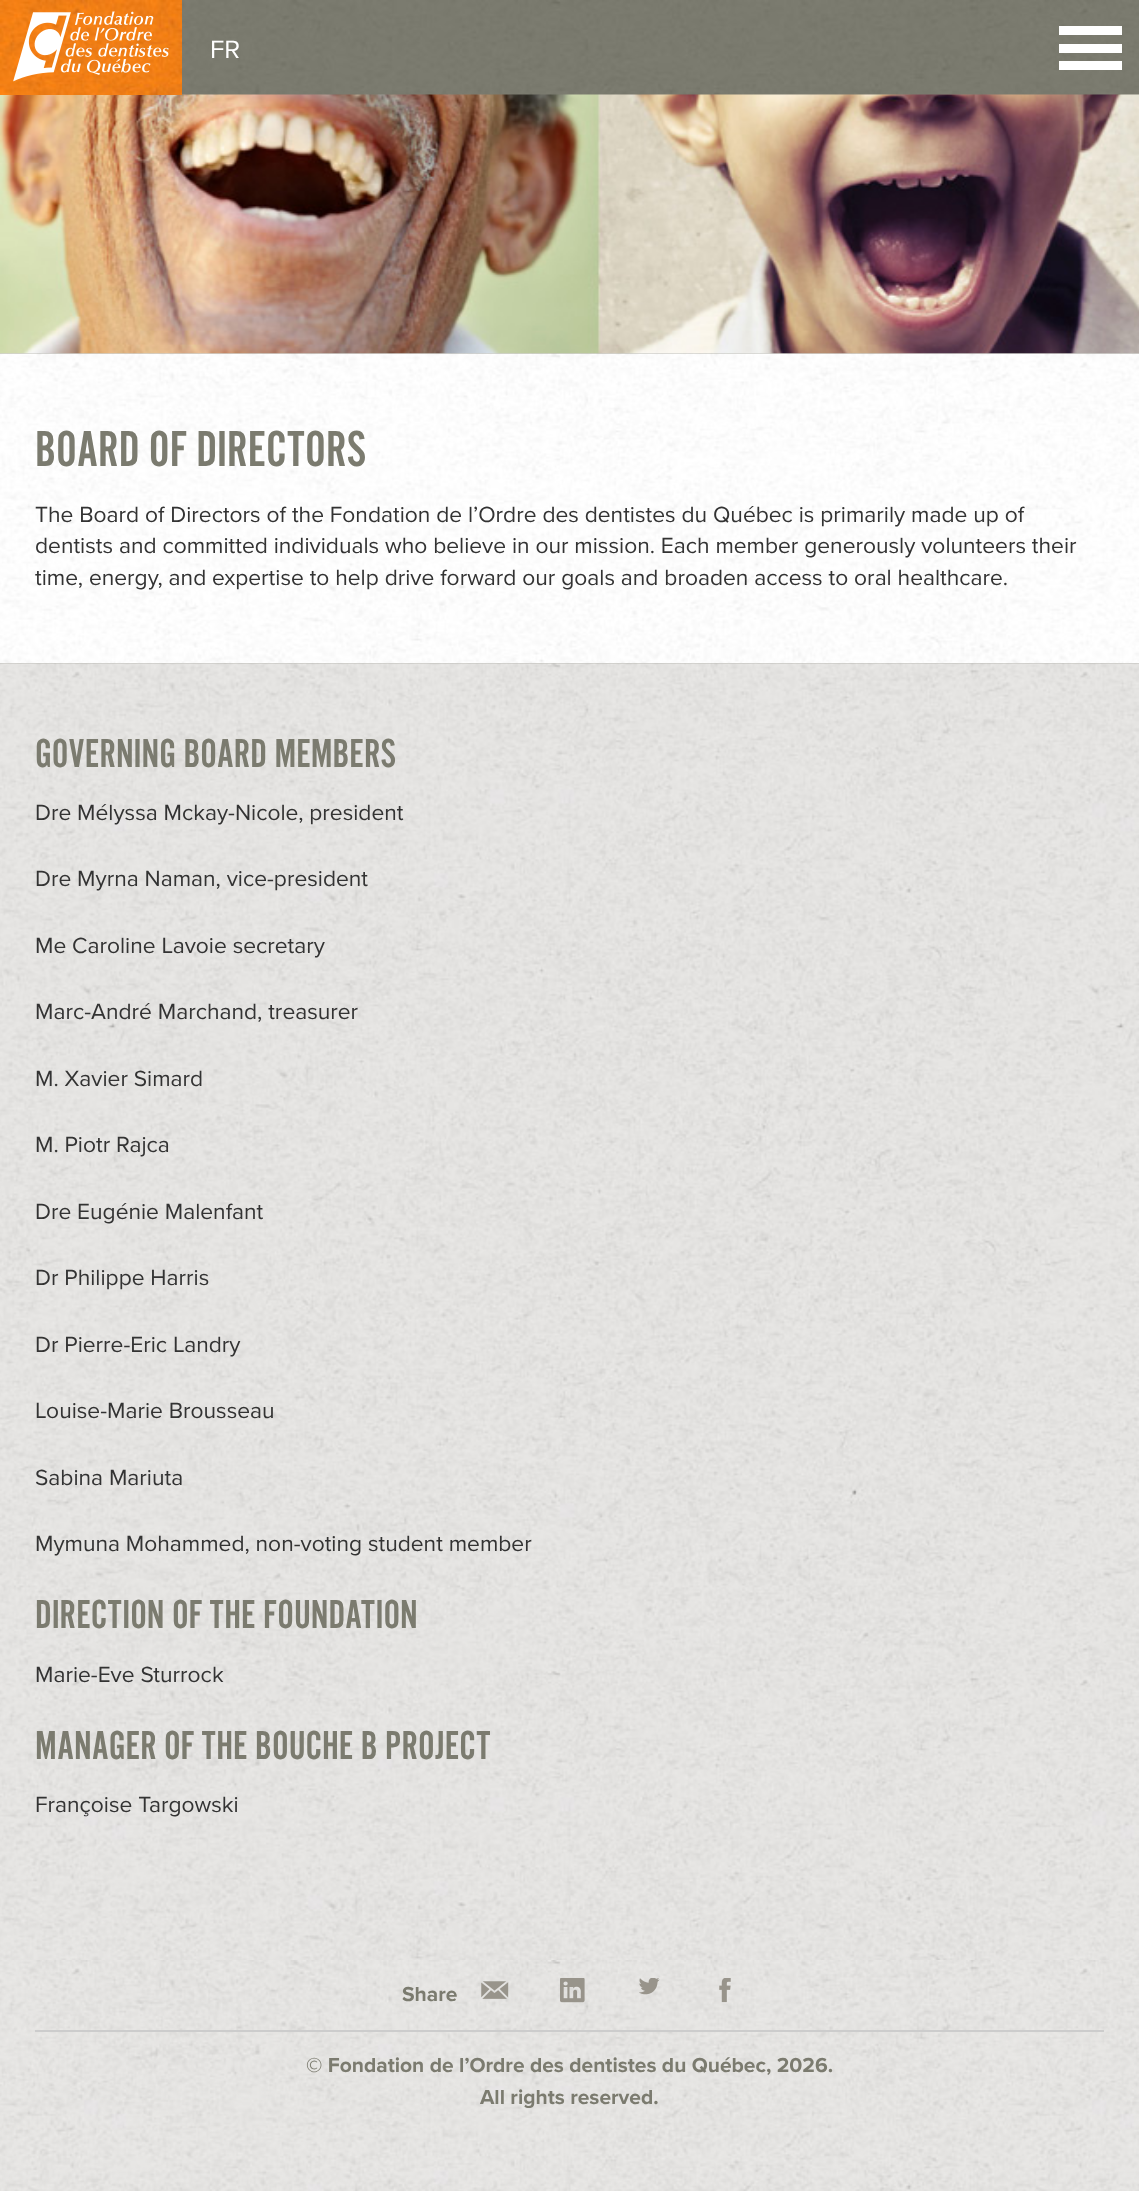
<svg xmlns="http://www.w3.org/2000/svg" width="1139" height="2191">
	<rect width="100%" height="100%" fill="#FFFFFF" />
	<image x="0" y="353" width="1139" height="311" href="assets/img1.png" />
	<image x="0" y="94" width="1139" height="260" href="assets/img5.png" />
	<image x="182" y="0" width="957" height="95" href="assets/img2.png" />
	<image x="0" y="0" width="182" height="95" href="assets/img3.png" />
	<image x="13" y="11" width="156" height="71" href="assets/img4.png" />
	<text x="210" y="58" font-family="Proxima Nova" font-size="26" fill="#FFFFFF">FR</text>
	<rect x="1059" y="26" width="63" height="9" fill="#FFFFFF" />
	<rect x="1059" y="44" width="63" height="9" fill="#FFFFFF" />
	<rect x="1059" y="61" width="63" height="9" fill="#FFFFFF" />
	<image x="0" y="353" width="1139" height="311" href="assets/img6.png" />
	<text x="35" y="466" font-family="'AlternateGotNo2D'" font-size="52.5" fill="#7B7B6F">BOARD OF DIRECTORS</text>
	<g font-family="Proxima Nova" font-size="22.75" fill="#333333">
		<text x="35" y="522">The Board of Directors of the Fondation de l’Ordre des dentistes du Québec is primarily made up of</text>
		<text x="35" y="553">dentists and committed individuals who believe in our mission. Each member generously volunteers their</text>
		<text x="35" y="585">time, energy, and expertise to help drive forward our goals and broaden access to oral healthcare.</text>
	</g>
	<image x="0" y="663" width="1139" height="1297" href="assets/img7.png" />
	<text x="35" y="767" font-family="'AlternateGotNo2D'" font-size="42" fill="#7B7B6F">GOVERNING BOARD MEMBERS</text>
	<g font-family="Proxima Nova" font-size="22.75" fill="#333333">
		<text x="35" y="820">Dre Mélyssa Mckay-Nicole, president</text>
		<text x="35" y="886">Dre Myrna Naman, vice-president</text>
		<text x="35" y="953">Me Caroline Lavoie secretary</text>
		<text x="35" y="1019">Marc-André Marchand, treasurer</text>
		<text x="35" y="1086">M. Xavier Simard</text>
		<text x="35" y="1152">M. Piotr Rajca</text>
		<text x="35" y="1219">Dre Eugénie Malenfant</text>
		<text x="35" y="1285">Dr Philippe Harris</text>
		<text x="35" y="1352">Dr Pierre-Eric Landry</text>
		<text x="35" y="1418">Louise-Marie Brousseau</text>
		<text x="35" y="1485">Sabina Mariuta</text>
		<text x="35" y="1551">Mymuna Mohammed, non-voting student member</text>
	</g>
	<text x="35" y="1628" font-family="'AlternateGotNo2D'" font-size="42" fill="#7B7B6F">DIRECTION OF THE FOUNDATION</text>
	<text x="35" y="1682" font-family="Proxima Nova" font-size="22.75" fill="#333333">Marie-Eve Sturrock</text>
	<text x="35" y="1759" font-family="'AlternateGotNo2D'" font-size="42" fill="#7B7B6F">MANAGER OF THE BOUCHE B PROJECT</text>
	<text x="35" y="1812" font-family="Proxima Nova" font-size="22.75" fill="#333333">Françoise Targowski</text>
	<image x="0" y="1960" width="1139" height="231" href="assets/img8.png" />
	<text x="402" y="2001" font-family="Proxima Nova" font-size="21" font-weight="700" fill="#7B7B6F">Share</text>
	<image x="481" y="1981" width="28" height="18" href="assets/img9.png" />
	<image x="560" y="1978" width="25" height="25" href="assets/img10.png" />
	<image x="639" y="1978" width="21" height="17" href="assets/img11.png" />
	<image x="719" y="1978" width="12" height="25" href="assets/img12.png" />
	<rect x="35" y="2030" width="1069" height="2" fill="#CCCCCC" />
	<g font-family="Proxima Nova" font-size="21" font-weight="700" fill="#7B7B6F">
		<text x="306" y="2072">© Fondation de l’Ordre des dentistes du Québec, 2026.</text>
		<text x="480" y="2104">All rights reserved.</text>
	</g>
</svg>
